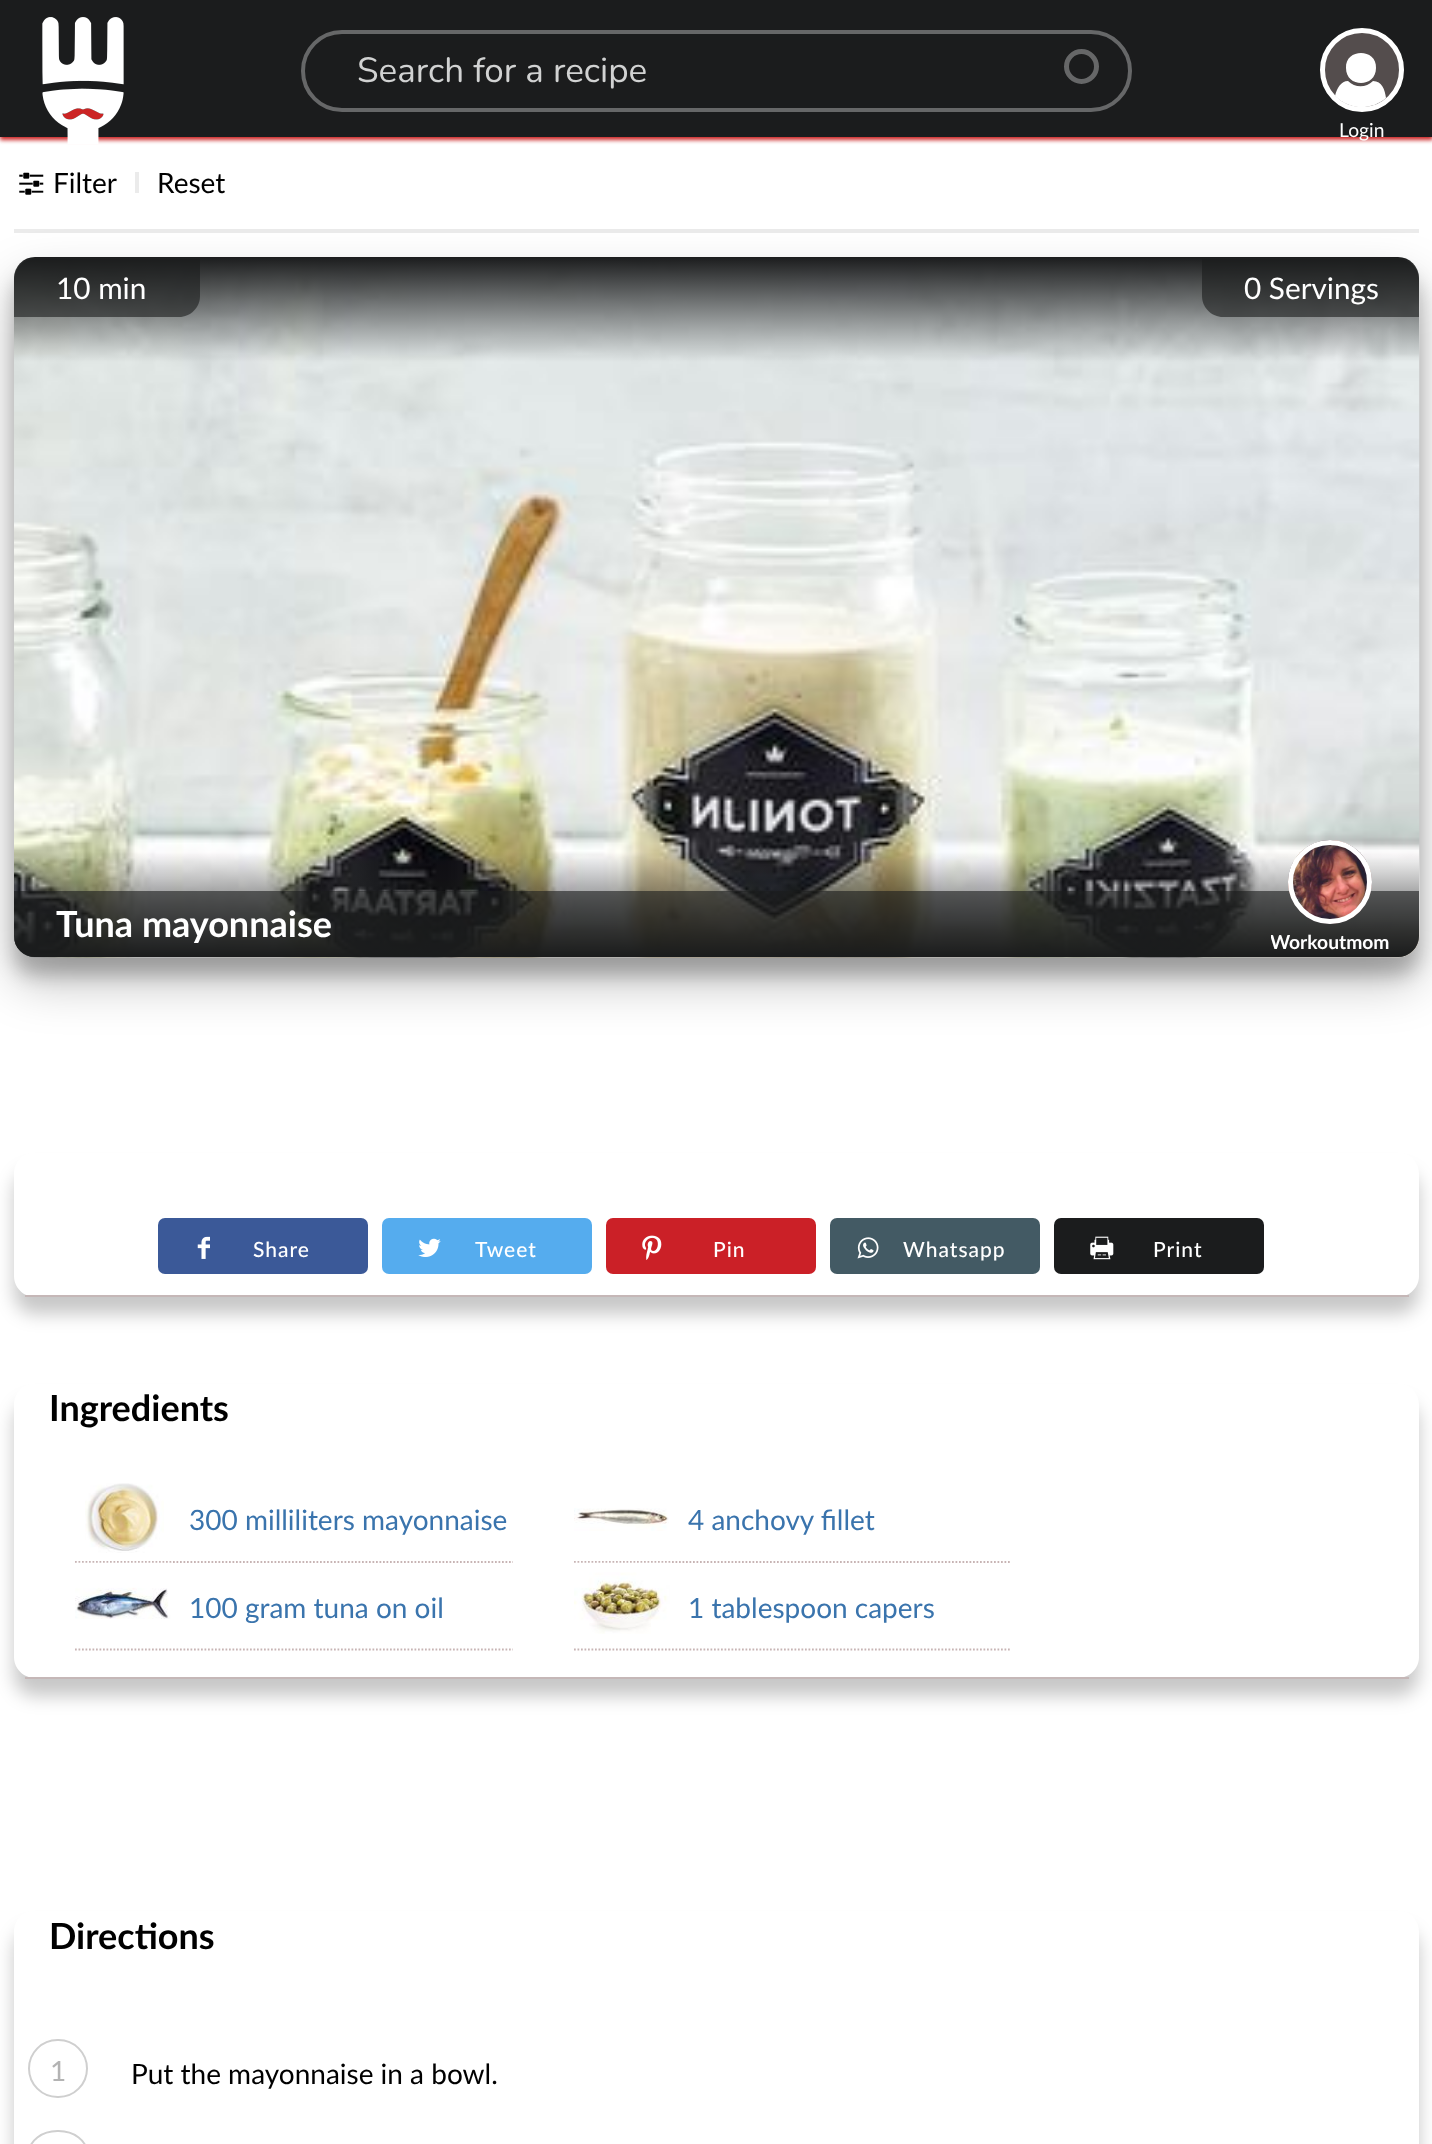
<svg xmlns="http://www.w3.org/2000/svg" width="1432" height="2144">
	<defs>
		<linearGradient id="g1" gradientUnits="userSpaceOnUse" x1="717" y1="257" x2="717" y2="957"><stop offset="0.7" stop-color="#FFFFFF" stop-opacity="0" /><stop offset="0.85" stop-color="#1B1C1D" stop-opacity="0" /><stop offset="1" stop-color="#1B1C1D" /></linearGradient>
		<linearGradient id="g2" gradientUnits="userSpaceOnUse" x1="717" y1="957" x2="717" y2="257"><stop offset="0.7" stop-color="#FFFFFF" stop-opacity="0" /><stop offset="0.85" stop-color="#1B1C1D" stop-opacity="0" /><stop offset="1" stop-color="#1B1C1D" /></linearGradient>
		<clipPath id="clip1"><rect x="1271" y="924" width="119" height="33" /></clipPath>
		<clipPath id="clip2"><path d="M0 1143H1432V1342H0ZM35 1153H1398C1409.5 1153 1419 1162.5 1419 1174V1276C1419 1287.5 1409.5 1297 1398 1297H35C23.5 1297 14 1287.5 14 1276V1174C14 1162.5 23.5 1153 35 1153Z" clip-rule="evenodd" /></clipPath>
		<clipPath id="clip3"><path d="M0 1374H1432V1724H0ZM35 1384H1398C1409.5 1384 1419 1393.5 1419 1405V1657C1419 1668.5 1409.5 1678 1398 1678H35C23.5 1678 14 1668.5 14 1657V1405C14 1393.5 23.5 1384 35 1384Z" clip-rule="evenodd" /></clipPath>
		<clipPath id="clip4"><path d="M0 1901H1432V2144H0ZM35 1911H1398C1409.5 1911 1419 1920.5 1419 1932V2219C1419 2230.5 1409.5 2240 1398 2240H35C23.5 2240 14 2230.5 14 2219V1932C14 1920.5 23.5 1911 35 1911Z" clip-rule="evenodd" /></clipPath>
	</defs>
	<rect width="100%" height="100%" fill="#FFFFFF" />
	<rect x="0" y="4" width="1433" height="136" fill="#CC2424" filter="blur(2px)" />
	<rect x="0" y="0" width="1432" height="137" fill="#1B1C1D" />
	<image x="42" y="17" width="82" height="127" href="assets/img1.png" />
	<circle cx="1081.5" cy="66.5" r="15" fill="none" stroke="#666768" stroke-width="5" />
	<rect x="303" y="32" width="827" height="78" rx="39" fill="none" stroke="#666768" stroke-width="4" />
	<text x="357" y="82" font-family="Nunito" font-size="35" fill="#D1D2D2">Search for a recipe</text>
	<circle cx="1362" cy="70" r="39.5" fill="#544D4D" stroke="#FFFFFF" stroke-width="5" />
	<path d="M1386 98C1371 111 1349 110 1335 96C1337 88 1341 81 1348 81C1355 88 1366 88 1373 81C1382 81 1385 90 1386 98ZM1376 68C1377 48 1345 48 1346 68C1346 88 1376 88 1376 68Z" fill="#FFFFFF" fill-rule="evenodd" />
	<text x="1339" y="137" font-family="Lato" font-size="19.25" fill="#FFFFFF">Login</text>
	<rect x="14" y="229" width="1405" height="4" fill="#EBEBEB" />
	<image x="19" y="172" width="25" height="23" href="assets/img2.png" />
	<text x="53" y="193" font-family="Lato" font-size="28" fill="#000000">Filter</text>
	<rect x="135" y="172" width="4" height="21" fill="#EBEBEB" />
	<text x="157" y="193" font-family="Lato" font-size="28" fill="#000000">Reset</text>
	<rect x="14" y="275" width="1405" height="700" rx="21" fill="#000000" fill-opacity="0.22" filter="blur(9px)" />
	<rect x="14" y="282" width="1405" height="700" rx="21" fill="#000000" fill-opacity="0.25" filter="blur(24.5px)" />
	<image x="14" y="257" width="1406" height="701" href="assets/img3.png" />
	<rect x="14" y="257" width="1405" height="700" rx="21" fill="url(#g1)" />
	<rect x="14" y="257" width="1405" height="700" rx="21" fill="url(#g2)" />
	<path d="M35 259H200V296C200 307.5 190.5 317 179 317H14V280C14 268.5 23.5 259 35 259Z" fill="#1B1C1D" fill-opacity="0.6" />
	<text x="56" y="299" font-family="Lato" font-size="29.75" fill="#FFFFFF">10 min</text>
	<path d="M1202 259H1398C1409.5 259 1419 268.5 1419 280V317H1223C1211.5 317 1202 307.5 1202 296Z" fill="#1B1C1D" fill-opacity="0.6" />
	<text x="1244" y="299" font-family="Lato" font-size="29.75" fill="#FFFFFF">0 Servings</text>
	<path d="M14 891H1419V936C1419 947.5 1409.5 957 1398 957H35C23.5 957 14 947.5 14 936Z" fill="#1B1C1D" fill-opacity="0.6" />
	<text x="56" y="937" font-family="Lato" font-size="36" font-weight="700" fill="#FFFFFF">Tuna mayonnaise</text>
	<image x="1288" y="840" width="84" height="84" href="assets/img4.png" />
	<circle cx="1330" cy="882" r="39.5" fill="none" stroke="#FFFFFF" stroke-width="5" />
	<g clip-path="url(#clip1)">
		<text x="1270" y="949" font-family="Lato" font-size="19.25" font-weight="700" fill="#FFFFFF">Workoutmom</text>
	</g>
	<g clip-path="url(#clip2)">
		<rect x="14" y="1171" width="1405" height="143" rx="21" fill="#000000" fill-opacity="0.22" filter="blur(9px)" />
	</g>
	<rect x="25" y="1295" width="1384" height="2" fill="#C5B7B7" />
	<rect x="158" y="1218" width="210" height="56" rx="7" fill="#3B5998" />
	<image x="197" y="1236" width="13" height="23" href="assets/img5.png" />
	<text x="253" y="1257" font-family="Lato" font-size="21" font-weight="500" letter-spacing="1" fill="#FFFFFF">Share</text>
	<rect x="382" y="1218" width="210" height="56" rx="7" fill="#55ACEE" />
	<image x="418" y="1238" width="23" height="19" href="assets/img6.png" />
	<text x="475" y="1257" font-family="Lato" font-size="21" font-weight="500" letter-spacing="1" fill="#FFFFFF">Tweet</text>
	<rect x="606" y="1218" width="210" height="56" rx="7" fill="#CB2027" />
	<image x="642" y="1235" width="20" height="25" href="assets/img7.png" />
	<text x="713" y="1257" font-family="Lato" font-size="21" font-weight="500" letter-spacing="1" fill="#FFFFFF">Pin</text>
	<rect x="830" y="1218" width="210" height="56" rx="7" fill="#435A64" />
	<image x="857" y="1237" width="22" height="22" href="assets/img8.png" />
	<text x="903" y="1257" font-family="Lato" font-size="21" font-weight="500" letter-spacing="1" fill="#FFFFFF">Whatsapp</text>
	<rect x="1054" y="1218" width="210" height="56" rx="7" fill="#1B1C1D" />
	<image x="1090" y="1236" width="24" height="24" href="assets/img9.png" />
	<text x="1153" y="1257" font-family="Lato" font-size="21" font-weight="500" letter-spacing="1" fill="#FFFFFF">Print</text>
	<g clip-path="url(#clip3)">
		<rect x="14" y="1402" width="1405" height="294" rx="21" fill="#000000" fill-opacity="0.22" filter="blur(9px)" />
	</g>
	<rect x="25" y="1677" width="1384" height="2" fill="#C5B7B7" />
	<text x="49" y="1421" font-family="Lato" font-size="36" font-weight="700" fill="#000000">Ingredients</text>
	<image x="85" y="1483" width="79" height="70" href="assets/img10.png" />
	<path d="M75 1562H513" fill="none" stroke="#C7B4B4" stroke-width="1.8" stroke-dasharray="1.75 1.75" />
	<text x="189" y="1530" font-family="Lato" font-size="28" fill="#3A74AD">300 milliliters mayonnaise</text>
	<image x="75" y="1562" width="96" height="57" href="assets/img11.png" />
	<path d="M75 1649.5H513" fill="none" stroke="#C7B4B4" stroke-width="1.8" stroke-dasharray="1.75 1.75" />
	<text x="189" y="1618" font-family="Lato" font-size="28" fill="#3A74AD">100 gram tuna on oil</text>
	<image x="574" y="1508" width="95" height="23" href="assets/img12.png" />
	<path d="M574 1562H1011.5" fill="none" stroke="#C7B4B4" stroke-width="1.8" stroke-dasharray="1.75 1.75" />
	<text x="688" y="1530" font-family="Lato" font-size="28" fill="#3A74AD">4 anchovy fillet</text>
	<image x="574" y="1562" width="96" height="72" href="assets/img13.png" />
	<path d="M574 1649.5H1011.5" fill="none" stroke="#C7B4B4" stroke-width="1.8" stroke-dasharray="1.75 1.75" />
	<text x="688" y="1618" font-family="Lato" font-size="28" fill="#3A74AD">1 tablespoon capers</text>
	<g clip-path="url(#clip4)">
		<rect x="14" y="1929" width="1405" height="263" rx="21" fill="#000000" fill-opacity="0.22" filter="blur(9px)" />
	</g>
	<text x="49" y="1949" font-family="Lato" font-size="36" font-weight="700" fill="#000000">Directions</text>
	<rect x="29" y="2040" width="58" height="57" rx="28.5" fill="none" stroke="#CFCFCF" stroke-width="2" />
	<text x="50" y="2081" font-family="Lato" font-size="28" fill="#B3B3B3">1</text>
	<text x="131" y="2084" font-family="Lato" font-size="28" fill="#000000">Put the mayonnaise in a bowl.</text>
	<rect x="29" y="2131" width="58" height="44" rx="28.5" fill="none" stroke="#CFCFCF" stroke-width="2" />
</svg>
